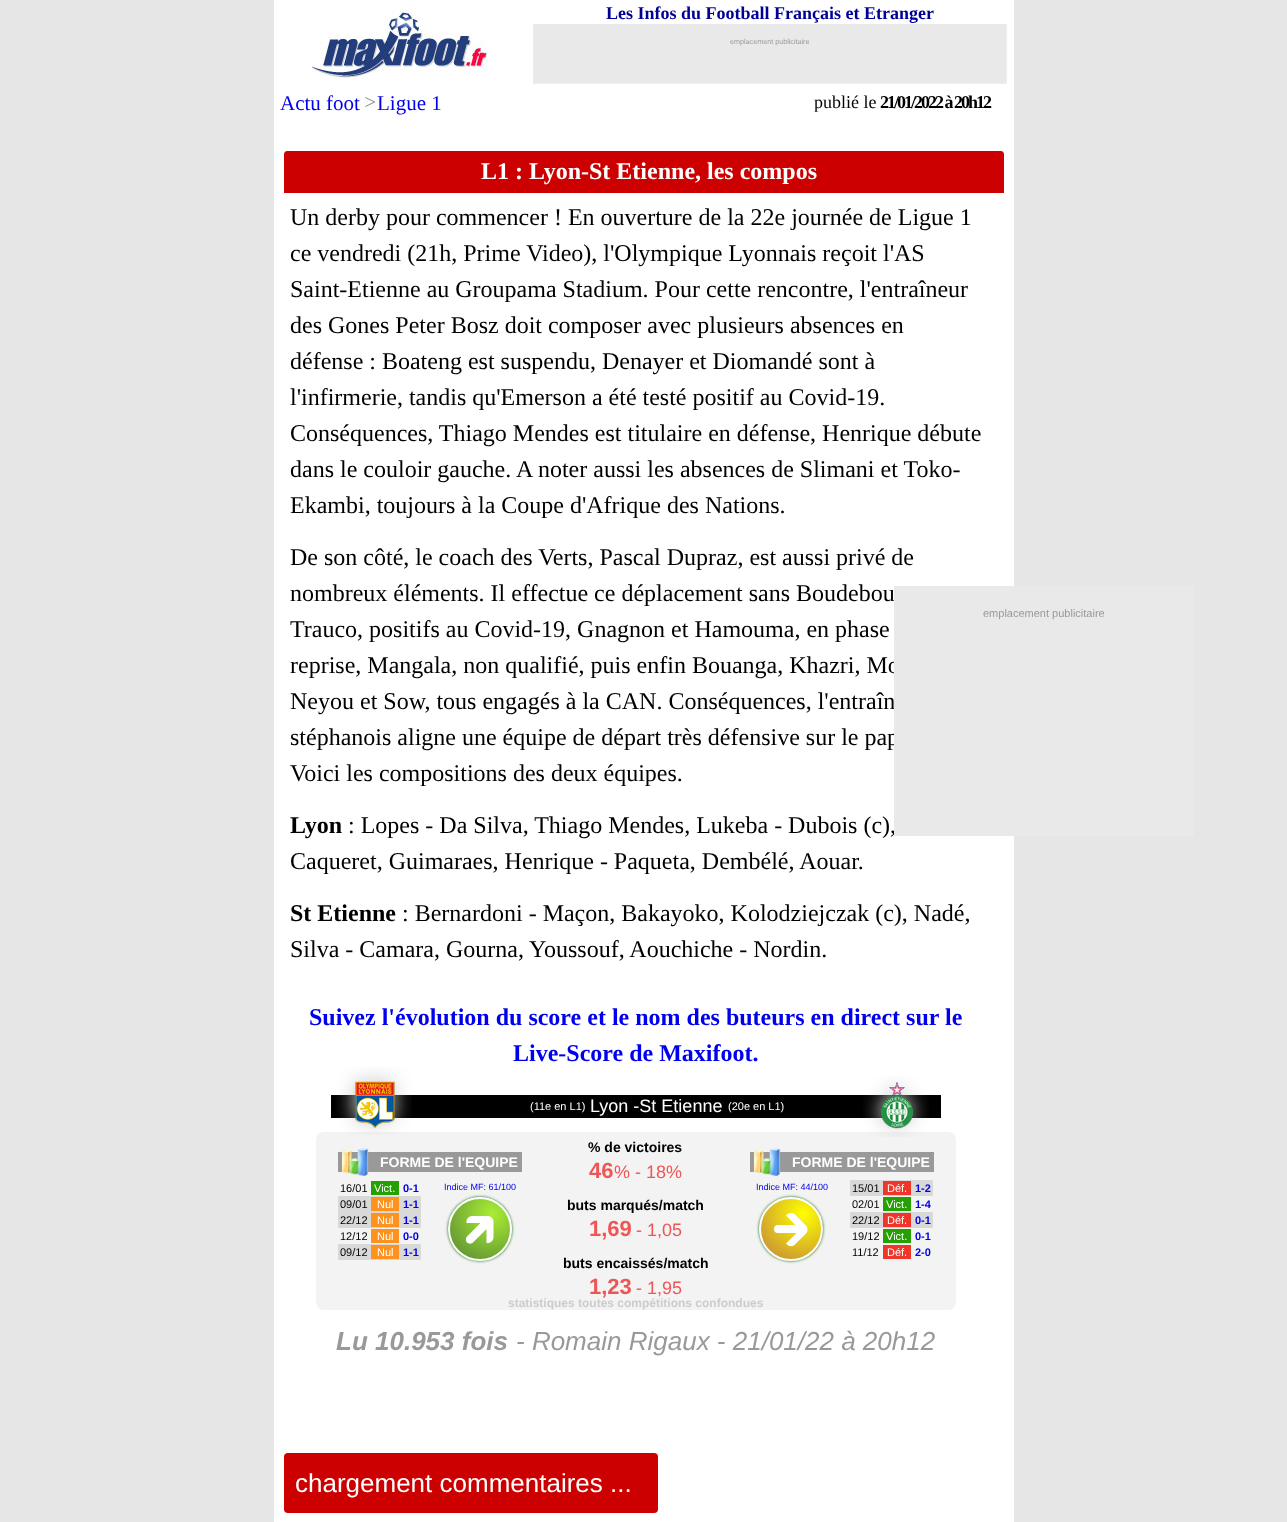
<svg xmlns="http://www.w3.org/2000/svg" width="1287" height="1522">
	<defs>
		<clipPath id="clip1"><rect x="448" y="1197" width="64" height="64" rx="32" /></clipPath>
		<radialGradient id="g1" gradientUnits="userSpaceOnUse" cx="492" cy="1214" r="50"><stop offset="0" stop-color="#AAEE33" /><stop offset="1" stop-color="#669933" /></radialGradient>
		<clipPath id="clip2"><rect x="759" y="1197" width="64" height="64" rx="32" /></clipPath>
		<radialGradient id="g2" gradientUnits="userSpaceOnUse" cx="803" cy="1214" r="50"><stop offset="0" stop-color="#FFFF00" /><stop offset="1" stop-color="#CC9933" /></radialGradient>
	</defs>
	<rect width="100%" height="100%" fill="#E6E6E6" />
	<rect x="274" y="0" width="740" height="1522" fill="#FFFFFF" />
	<text x="606" y="19" font-family="Liberation Serif" font-size="18" font-weight="700" fill="#000099">Les Infos du Football Français et Etranger</text>
	<rect x="533" y="24" width="474" height="60" fill="#EEEEEE" />
	<rect x="533" y="24" width="473" height="59" fill="#E9E9E9" />
	<text x="730" y="44" font-family="Liberation Sans" font-size="7.2" fill="#999999">emplacement publicitaire</text>
	<image x="312" y="9" width="175" height="72" href="assets/img1.png" />
	<text x="280" y="110" font-family="Liberation Serif" font-size="21" fill="#0000EE">Actu foot</text>
	<text x="363" y="109" font-family="Liberation Serif" font-size="21" font-style="italic" letter-spacing="-7" fill="#888888">&gt;</text>
	<text x="377" y="110" font-family="Liberation Serif" font-size="21" fill="#0000EE">Ligue 1</text>
	<text x="814" y="108" font-family="Liberation Serif" font-size="18" fill="#000000">publié le</text>
	<text x="880" y="108" font-family="Liberation Serif" font-size="18" font-weight="700" letter-spacing="-2" fill="#000000">21/01/2022 à 20h12</text>
	<path d="M287 151H1001C1002.5 151 1004 152.5 1004 154V193H284V154C284 152.5 285.5 151 287 151Z" fill="#CC0000" />
	<text x="481" y="179" font-family="Liberation Serif" font-size="24" font-weight="700" fill="#FFFFFF">L1 : Lyon-St Etienne, les compos</text>
	<g font-family="Liberation Serif" font-size="24" fill="#000000">
		<text x="290" y="225">Un derby pour commencer ! En ouverture de la 22e journée de Ligue 1</text>
		<text x="290" y="261">ce vendredi (21h, Prime Video), l'Olympique Lyonnais reçoit l'AS</text>
		<text x="290" y="297">Saint-Etienne au Groupama Stadium. Pour cette rencontre, l'entraîneur</text>
		<text x="290" y="333">des Gones Peter Bosz doit composer avec plusieurs absences en</text>
		<text x="290" y="369">défense : Boateng est suspendu, Denayer et Diomandé sont à</text>
		<text x="290" y="405">l'infirmerie, tandis qu'Emerson a été testé positif au Covid-19.</text>
		<text x="290" y="441">Conséquences, Thiago Mendes est titulaire en défense, Henrique débute</text>
		<text x="290" y="477">dans le couloir gauche. A noter aussi les absences de Slimani et Toko-</text>
		<text x="290" y="513">Ekambi, toujours à la Coupe d'Afrique des Nations.</text>
		<text x="290" y="565">De son côté, le coach des Verts, Pascal Dupraz, est aussi privé de</text>
		<text x="290" y="601">nombreux éléments. Il effectue ce déplacement sans Boudebou</text>
		<text x="290" y="637">Trauco, positifs au Covid-19, Gnagnon et Hamouma, en phase</text>
		<text x="290" y="673">reprise, Mangala, non qualifié, puis enfin Bouanga, Khazri, Mo</text>
		<text x="290" y="709">Neyou et Sow, tous engagés à la CAN. Conséquences, l'entraîn</text>
		<text x="290" y="745">stéphanois aligne une équipe de départ très défensive sur le pap</text>
		<text x="290" y="781">Voici les compositions des deux équipes.</text>
	</g>
	<text x="290" y="833" font-family="Liberation Serif" font-size="24" font-weight="700" fill="#000000">Lyon</text>
	<g font-family="Liberation Serif" font-size="24" fill="#000000">
		<text x="348" y="833">: Lopes - Da Silva, Thiago Mendes, Lukeba - Dubois (c),</text>
		<text x="290" y="869">Caqueret, Guimaraes, Henrique - Paqueta, Dembélé, Aouar.</text>
	</g>
	<text x="290" y="921" font-family="Liberation Serif" font-size="24" font-weight="700" fill="#000000">St Etienne</text>
	<g font-family="Liberation Serif" font-size="24" fill="#000000">
		<text x="402" y="921">: Bernardoni - Maçon, Bakayoko, Kolodziejczak (c), Nadé,</text>
		<text x="290" y="957">Silva - Camara, Gourna, Youssouf, Aouchiche - Nordin.</text>
	</g>
	<g font-family="Liberation Serif" font-size="24" font-weight="700" fill="#0000EE">
		<text x="309" y="1025">Suivez l'évolution du score et le nom des buteurs en direct sur le</text>
		<text x="513" y="1061">Live-Score de Maxifoot.</text>
	</g>
	<rect x="331" y="1095" width="610" height="23" fill="#000000" />
	<rect x="316" y="1132" width="640" height="178" rx="8" fill="#F3F3F3" />
	<image x="336" y="1067" width="76" height="68" href="assets/img2.png" />
	<text x="530" y="1110" font-family="Liberation Sans" font-size="11" fill="#FFFFFF">(11e en L1)</text>
	<text x="590" y="1112" font-family="Liberation Sans" font-size="18" fill="#FFFFFF">Lyon -St Etienne</text>
	<text x="728" y="1110" font-family="Liberation Sans" font-size="11" fill="#FFFFFF">(20e en L1)</text>
	<image x="863" y="1076" width="66" height="61" href="assets/img3.png" />
	<rect x="338" y="1152" width="184" height="20" fill="#999999" />
	<image x="341" y="1148" width="28" height="28" href="assets/img4.png" />
	<text x="380" y="1167" font-family="Liberation Sans" font-size="14" font-weight="700" fill="#FFFFFF">FORME DE l'EQUIPE</text>
	<text x="340" y="1192" font-family="Liberation Sans" font-size="11" fill="#000000">16/01</text>
	<rect x="371" y="1181" width="28" height="14" fill="#24A000" />
	<text x="374" y="1192" font-family="Liberation Sans" font-size="11" fill="#FFFFFF">Vict.</text>
	<text x="403" y="1192" font-family="Liberation Sans" font-size="11" font-weight="700" fill="#0000EE">0-1</text>
	<rect x="338" y="1196" width="83" height="32" fill="#D9D9D9" />
	<text x="340" y="1208" font-family="Liberation Sans" font-size="11" fill="#000000">09/01</text>
	<rect x="371" y="1197" width="28" height="14" fill="#FF921D" />
	<text x="377" y="1208" font-family="Liberation Sans" font-size="11" fill="#FFFFFF">Nul</text>
	<text x="403" y="1208" font-family="Liberation Sans" font-size="11" font-weight="700" fill="#0000EE">1-1</text>
	<text x="340" y="1224" font-family="Liberation Sans" font-size="11" fill="#000000">22/12</text>
	<rect x="371" y="1213" width="28" height="14" fill="#FF921D" />
	<text x="377" y="1224" font-family="Liberation Sans" font-size="11" fill="#FFFFFF">Nul</text>
	<text x="403" y="1224" font-family="Liberation Sans" font-size="11" font-weight="700" fill="#0000EE">1-1</text>
	<text x="340" y="1240" font-family="Liberation Sans" font-size="11" fill="#000000">12/12</text>
	<rect x="371" y="1229" width="28" height="14" fill="#FF921D" />
	<text x="377" y="1240" font-family="Liberation Sans" font-size="11" fill="#FFFFFF">Nul</text>
	<text x="403" y="1240" font-family="Liberation Sans" font-size="11" font-weight="700" fill="#0000EE">0-0</text>
	<rect x="338" y="1244" width="83" height="16" fill="#D9D9D9" />
	<text x="340" y="1256" font-family="Liberation Sans" font-size="11" fill="#000000">09/12</text>
	<rect x="371" y="1245" width="28" height="14" fill="#FF921D" />
	<text x="377" y="1256" font-family="Liberation Sans" font-size="11" fill="#FFFFFF">Nul</text>
	<text x="403" y="1256" font-family="Liberation Sans" font-size="11" font-weight="700" fill="#0000EE">1-1</text>
	<text x="444" y="1190" font-family="Liberation Sans" font-size="9" fill="#0000EE">Indice MF: 61/100</text>
	<rect x="448" y="1197" width="64" height="64" rx="32" fill="#006600" filter="blur(1.5px)" />
	<g clip-path="url(#clip1)">
		<rect x="450" y="1199" width="60" height="60" fill="url(#g1)" />
	</g>
	<circle cx="480" cy="1229" r="31" fill="none" stroke="#FFFFFF" stroke-width="2" />
	<path d="M467 1236.5L484 1219.5C485.5 1218 488.5 1218 490 1219.5C491.5 1221 491.5 1224 490 1225.5L473 1242.5C471.5 1244 468.5 1244 467 1242.5C465.5 1241 465.5 1238 467 1236.5Z" fill="#FFFFFF" />
	<path d="M466.5 1237V1222C466.5 1218.5 469 1216 472.5 1216H487.5C491 1216 493.5 1218.5 493.5 1222V1237C493.5 1240.5 491 1243 487.5 1243H472.5C469 1243 466.5 1240.5 466.5 1237ZM466.5 1237V1223H486.5V1243H472.5C469 1243 466.5 1240.5 466.5 1237Z" fill="#FFFFFF" fill-rule="evenodd" />
	<text x="588" y="1152" font-family="Liberation Sans" font-size="14" font-weight="700" fill="#000000">% de victoires</text>
	<text x="589" y="1178" font-family="Liberation Sans" font-size="22" font-weight="700" fill="#EE5555">46</text>
	<text x="614" y="1178" font-family="Liberation Sans" font-size="18" fill="#EE5555">% - 18%</text>
	<text x="567" y="1210" font-family="Liberation Sans" font-size="14" font-weight="700" fill="#000000">buts marqués/match</text>
	<text x="589" y="1236" font-family="Liberation Sans" font-size="22" font-weight="700" fill="#EE5555">1,69</text>
	<text x="636" y="1236" font-family="Liberation Sans" font-size="18" fill="#EE5555">- 1,05</text>
	<text x="563" y="1268" font-family="Liberation Sans" font-size="14" font-weight="700" fill="#000000">buts encaissés/match</text>
	<text x="589" y="1294" font-family="Liberation Sans" font-size="22" font-weight="700" fill="#EE5555">1,23</text>
	<text x="636" y="1294" font-family="Liberation Sans" font-size="18" fill="#EE5555">- 1,95</text>
	<rect x="750" y="1152" width="184" height="20" fill="#999999" />
	<image x="753" y="1148" width="28" height="28" href="assets/img4.png" />
	<text x="792" y="1167" font-family="Liberation Sans" font-size="14" font-weight="700" fill="#FFFFFF">FORME DE l'EQUIPE</text>
	<text x="756" y="1190" font-family="Liberation Sans" font-size="9" fill="#0000EE">Indice MF: 44/100</text>
	<rect x="759" y="1197" width="64" height="64" rx="32" fill="#006600" filter="blur(1.5px)" />
	<g clip-path="url(#clip2)">
		<rect x="761" y="1199" width="60" height="60" fill="url(#g2)" />
	</g>
	<circle cx="791" cy="1229" r="31" fill="none" stroke="#FFFFFF" stroke-width="2" />
	<rect x="774" y="1225" width="32" height="8" rx="4" fill="#FFFFFF" />
	<path d="M776 1225.5L787 1214.5C789 1212.5 793 1212.5 795 1214.5L806 1225.5C808 1227.5 808 1231.5 806 1233.5L795 1244.5C793 1246.5 789 1246.5 787 1244.5L776 1233.5C774 1231.5 774 1227.5 776 1225.5ZM776 1225.5L786 1215.5L800 1229.5L786 1243.5L776 1233.5C774 1231.5 774 1227.5 776 1225.5Z" fill="#FFFFFF" fill-rule="evenodd" />
	<rect x="850" y="1180" width="83" height="16" fill="#D9D9D9" />
	<text x="852" y="1192" font-family="Liberation Sans" font-size="11" fill="#000000">15/01</text>
	<rect x="883" y="1181" width="28" height="14" fill="#F03629" />
	<text x="887" y="1192" font-family="Liberation Sans" font-size="11" fill="#FFFFFF">Déf.</text>
	<text x="915" y="1192" font-family="Liberation Sans" font-size="11" font-weight="700" fill="#0000EE">1-2</text>
	<text x="852" y="1208" font-family="Liberation Sans" font-size="11" fill="#000000">02/01</text>
	<rect x="883" y="1197" width="28" height="14" fill="#24A000" />
	<text x="886" y="1208" font-family="Liberation Sans" font-size="11" fill="#FFFFFF">Vict.</text>
	<text x="915" y="1208" font-family="Liberation Sans" font-size="11" font-weight="700" fill="#0000EE">1-4</text>
	<rect x="850" y="1212" width="83" height="16" fill="#D9D9D9" />
	<text x="852" y="1224" font-family="Liberation Sans" font-size="11" fill="#000000">22/12</text>
	<rect x="883" y="1213" width="28" height="14" fill="#F03629" />
	<text x="887" y="1224" font-family="Liberation Sans" font-size="11" fill="#FFFFFF">Déf.</text>
	<text x="915" y="1224" font-family="Liberation Sans" font-size="11" font-weight="700" fill="#0000EE">0-1</text>
	<text x="852" y="1240" font-family="Liberation Sans" font-size="11" fill="#000000">19/12</text>
	<rect x="883" y="1229" width="28" height="14" fill="#24A000" />
	<text x="886" y="1240" font-family="Liberation Sans" font-size="11" fill="#FFFFFF">Vict.</text>
	<text x="915" y="1240" font-family="Liberation Sans" font-size="11" font-weight="700" fill="#0000EE">0-1</text>
	<text x="852" y="1256" font-family="Liberation Sans" font-size="11" fill="#000000">11/12</text>
	<rect x="883" y="1245" width="28" height="14" fill="#F03629" />
	<text x="887" y="1256" font-family="Liberation Sans" font-size="11" fill="#FFFFFF">Déf.</text>
	<text x="915" y="1256" font-family="Liberation Sans" font-size="11" font-weight="700" fill="#0000EE">2-0</text>
	<text x="508" y="1307" font-family="Liberation Sans" font-size="12" font-weight="700" fill="#CCCCCC">statistiques toutes compétitions confondues</text>
	<text x="336" y="1350" font-family="Liberation Sans" font-size="26" font-weight="700" font-style="italic" fill="#999999">Lu 10.953 fois</text>
	<text x="516" y="1350" font-family="Liberation Sans" font-size="26" font-style="italic" fill="#999999">- Romain Rigaux - 21/01/22 à 20h12</text>
	<rect x="894" y="586" width="300" height="250" fill="#E9E9E9" />
	<text x="983" y="617" font-family="Liberation Sans" font-size="11" fill="#999999">emplacement publicitaire</text>
	<rect x="284" y="1453" width="374" height="60" rx="4" fill="#CC0000" />
	<text x="295" y="1492" font-family="Liberation Sans" font-size="26" fill="#FFFFFF">chargement commentaires ...</text>
</svg>
